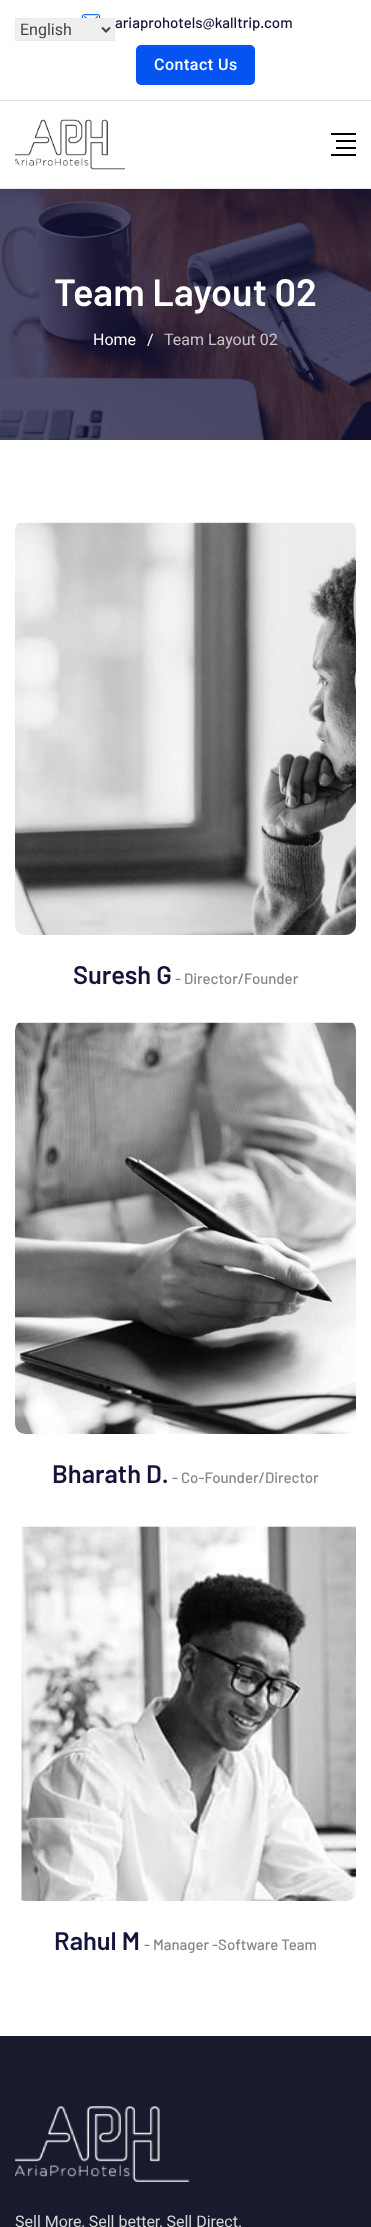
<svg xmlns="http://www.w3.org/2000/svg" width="371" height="2227">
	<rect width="100%" height="100%" fill="#FFFFFF" />
	<rect x="0" y="100" width="371" height="1" fill="#E1E1E1" />
	<image x="82" y="14" width="18" height="4" href="assets/img1.png" />
	<text x="115" y="28" font-family="Barlow" font-size="15" font-weight="500" fill="#14133B">ariaprohotels@kalltrip.com</text>
	<rect x="136" y="45" width="119" height="40" rx="5" fill="#0554F2" />
	<text x="154" y="70" font-family="Roboto" font-size="16" font-weight="500" letter-spacing="0.5" fill="#FFFFFF">Contact Us</text>
	<rect x="0" y="188" width="371" height="1" fill="#E9E9E9" />
	<image x="15" y="119" width="110" height="51" href="assets/img2.png" />
	<rect x="331" y="133" width="25" height="2" fill="#000000" />
	<rect x="336" y="140" width="20" height="2" fill="#000000" />
	<rect x="336" y="147" width="20" height="2" fill="#000000" />
	<rect x="331" y="154" width="25" height="2" fill="#000000" />
	<image x="0" y="189" width="371" height="251" href="assets/img3.png" />
	<text x="54" y="306" font-family="Barlow" font-size="38" font-weight="600" fill="#FFFFFF">Team Layout 02</text>
	<g font-family="Roboto" font-size="16" fill="#FFFFFF">
		<text x="93" y="345">Home</text>
		<text x="147" y="345">/</text>
	</g>
	<text x="164" y="345" font-family="Roboto" font-size="16" fill="#C7C7C7">Team Layout 02</text>
	<image x="15" y="522" width="341" height="413" href="assets/img4.png" />
	<text x="73" y="984" font-family="Barlow" font-size="25.5" font-weight="600" fill="#14133B">Suresh G</text>
	<text x="175" y="984" font-family="Barlow" font-size="15" font-weight="500" fill="#868686">- Director/Founder</text>
	<image x="15" y="1022" width="341" height="412" href="assets/img5.png" />
	<text x="52" y="1483" font-family="Barlow" font-size="25.5" font-weight="600" fill="#14133B">Bharath D.</text>
	<text x="172" y="1483" font-family="Barlow" font-size="15" font-weight="500" fill="#868686">- Co-Founder/Director</text>
	<image x="21" y="1526" width="335" height="375" href="assets/img6.png" />
	<text x="54" y="1950" font-family="Barlow" font-size="25.5" font-weight="600" fill="#14133B">Rahul M</text>
	<text x="144" y="1950" font-family="Barlow" font-size="15" font-weight="500" fill="#868686">- Manager -Software Team</text>
	<rect x="0" y="2036" width="371" height="191" fill="#181A2E" />
	<image x="15" y="2106" width="175" height="76" href="assets/img7.png" />
	<text x="15" y="2227" font-family="Roboto" font-size="16" fill="#D7D7D7">Sell More, Sell better, Sell Direct.</text>
	<rect x="15.5" y="18.5" width="99" height="22" fill="#EFEFEF" stroke="#EBEBEB" />
	<path d="M102 27.5L106 31.5L110 27.5" fill="none" stroke="#444444" stroke-width="2" />
	<text x="20" y="35" font-family="Roboto" font-size="16" fill="#444444">English</text>
</svg>
